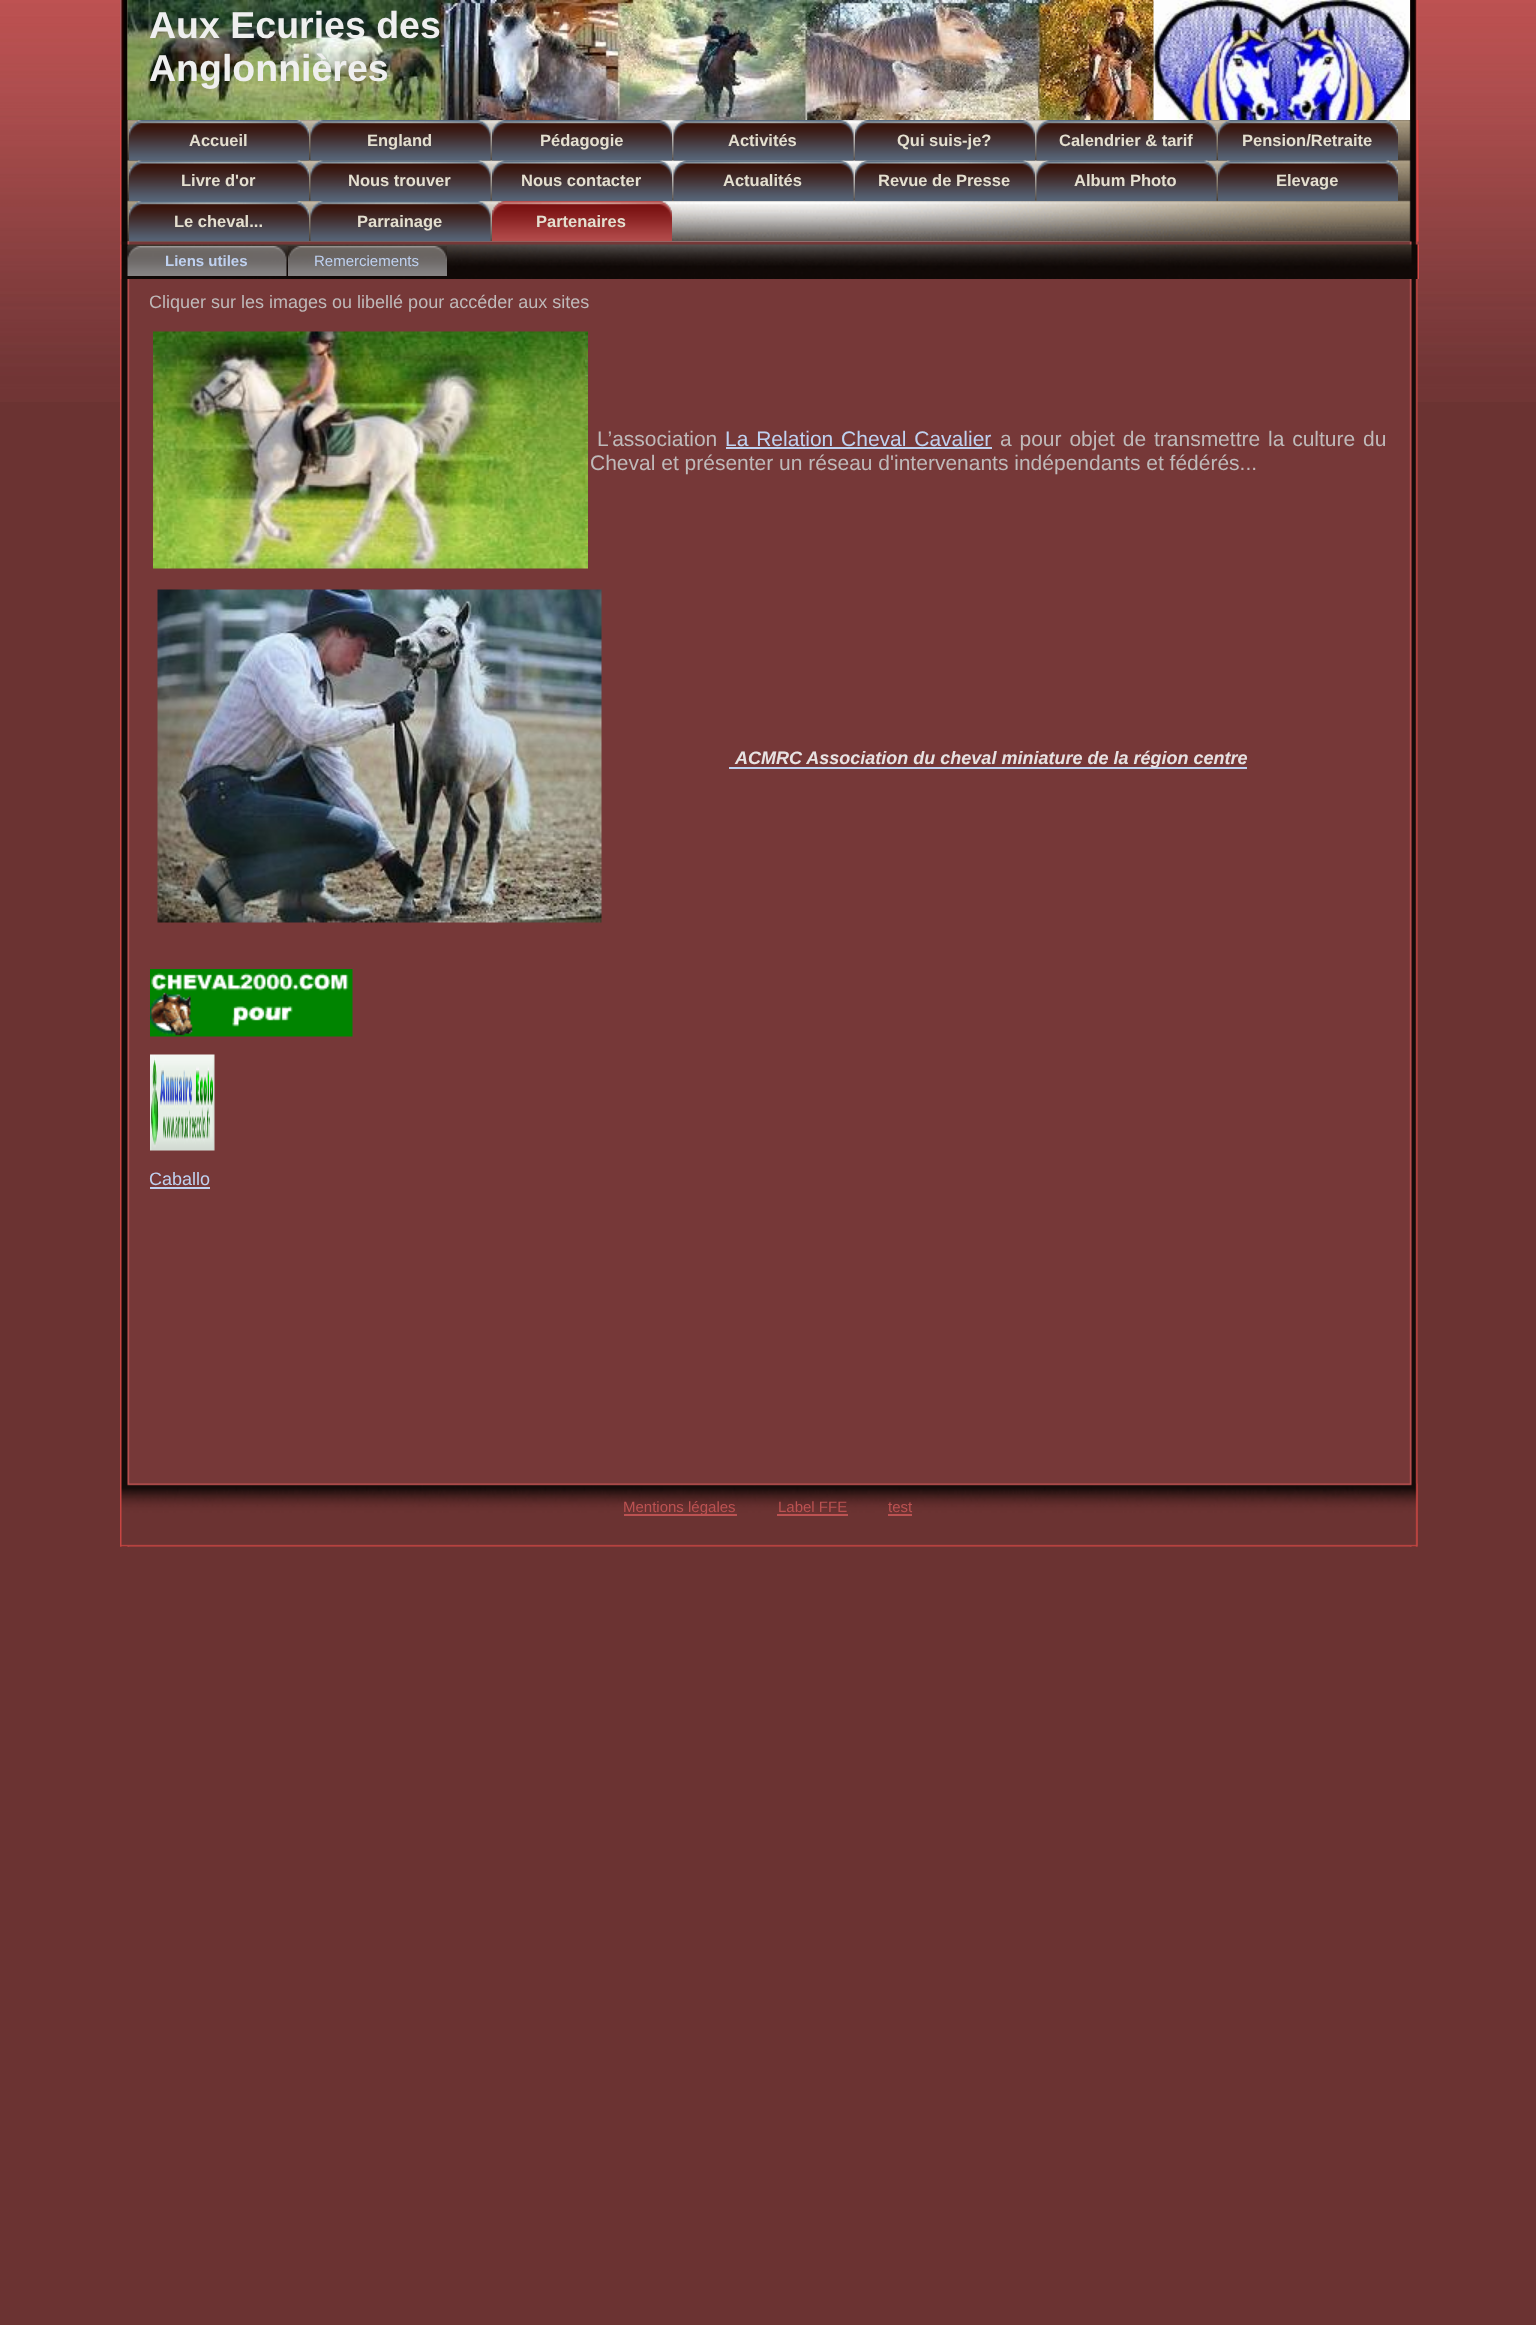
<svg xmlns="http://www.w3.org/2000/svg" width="1536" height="2325">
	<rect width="100%" height="100%" fill="#6B3332" />
	<image x="0" y="0" width="1536" height="402" href="assets/img1.png" />
	<image x="120" y="0" width="1298" height="1547" href="assets/img2.png" />
	<image x="120" y="0" width="1298" height="120" href="assets/img3.png" />
	<image x="127" y="0" width="1027" height="120" href="assets/img4.png" />
	<g font-family="Liberation Sans" font-size="37.5" font-weight="700" fill="#EFEFEF">
		<text x="149" y="38">Aux Ecuries des</text>
		<text x="149" y="81">Anglonnières</text>
	</g>
	<image x="1153" y="0" width="257" height="120" href="assets/img5.png" />
	<image x="120" y="120" width="1299" height="122" href="assets/img6.png" />
	<image x="129" y="120" width="180" height="41" href="assets/img7.png" />
	<text x="189" y="146" font-family="Liberation Sans" font-size="16.5" font-weight="700" fill="#E4DFCF">Accueil</text>
	<image x="310" y="120" width="181" height="41" href="assets/img8.png" />
	<text x="367" y="146" font-family="Liberation Sans" font-size="16.5" font-weight="700" fill="#E4DFCF">England</text>
	<image x="492" y="120" width="180" height="41" href="assets/img9.png" />
	<text x="540" y="146" font-family="Liberation Sans" font-size="16.5" font-weight="700" fill="#E4DFCF">Pédagogie</text>
	<image x="673" y="120" width="181" height="41" href="assets/img10.png" />
	<text x="728" y="146" font-family="Liberation Sans" font-size="16.5" font-weight="700" fill="#E4DFCF">Activités</text>
	<image x="855" y="120" width="180" height="41" href="assets/img11.png" />
	<text x="897" y="146" font-family="Liberation Sans" font-size="16.5" font-weight="700" fill="#E4DFCF">Qui suis-je?</text>
	<image x="1036" y="120" width="181" height="41" href="assets/img12.png" />
	<text x="1059" y="146" font-family="Liberation Sans" font-size="16.5" font-weight="700" fill="#E4DFCF">Calendrier &amp; tarif</text>
	<image x="1218" y="120" width="180" height="41" href="assets/img13.png" />
	<text x="1242" y="146" font-family="Liberation Sans" font-size="16.5" font-weight="700" fill="#E4DFCF">Pension/Retraite</text>
	<image x="129" y="160" width="180" height="41" href="assets/img14.png" />
	<text x="181" y="186" font-family="Liberation Sans" font-size="16.5" font-weight="700" fill="#E4DFCF">Livre d'or</text>
	<image x="310" y="160" width="181" height="41" href="assets/img15.png" />
	<text x="348" y="186" font-family="Liberation Sans" font-size="16.5" font-weight="700" fill="#E4DFCF">Nous trouver</text>
	<image x="492" y="160" width="180" height="41" href="assets/img16.png" />
	<text x="521" y="186" font-family="Liberation Sans" font-size="16.5" font-weight="700" fill="#E4DFCF">Nous contacter</text>
	<image x="673" y="160" width="181" height="41" href="assets/img17.png" />
	<text x="723" y="186" font-family="Liberation Sans" font-size="16.5" font-weight="700" fill="#E4DFCF">Actualités</text>
	<image x="855" y="160" width="180" height="41" href="assets/img18.png" />
	<text x="878" y="186" font-family="Liberation Sans" font-size="16.5" font-weight="700" fill="#E4DFCF">Revue de Presse</text>
	<image x="1036" y="160" width="181" height="41" href="assets/img19.png" />
	<text x="1074" y="186" font-family="Liberation Sans" font-size="16.5" font-weight="700" fill="#E4DFCF">Album Photo</text>
	<image x="1218" y="160" width="180" height="41" href="assets/img20.png" />
	<text x="1276" y="186" font-family="Liberation Sans" font-size="16.5" font-weight="700" fill="#E4DFCF">Elevage</text>
	<image x="129" y="201" width="180" height="41" href="assets/img21.png" />
	<text x="174" y="227" font-family="Liberation Sans" font-size="16.5" font-weight="700" fill="#E4DFCF">Le cheval...</text>
	<image x="310" y="201" width="181" height="41" href="assets/img22.png" />
	<text x="357" y="227" font-family="Liberation Sans" font-size="16.5" font-weight="700" fill="#E4DFCF">Parrainage</text>
	<image x="492" y="201" width="180" height="41" href="assets/img23.png" />
	<text x="536" y="227" font-family="Liberation Sans" font-size="16.5" font-weight="700" fill="#E4DFCF">Partenaires</text>
	<image x="120" y="244" width="1299" height="35" href="assets/img24.png" />
	<image x="127" y="246" width="160" height="30" href="assets/img25.png" />
	<text x="165" y="266" font-family="Liberation Sans" font-size="15" font-weight="700" fill="#BFD1F0">Liens utiles</text>
	<image x="288" y="246" width="159" height="30" href="assets/img26.png" />
	<text x="314" y="266" font-family="Liberation Sans" font-size="15" fill="#BFD1F0">Remerciements</text>
	<text x="149" y="308" font-family="Liberation Sans" font-size="18" fill="#BFB9B9">Cliquer sur les images ou libellé pour accéder aux sites</text>
	<image x="153" y="331" width="435" height="238" href="assets/img27.png" />
	<text x="597" y="446" font-family="Liberation Sans" font-size="21" fill="#BFB9B9">L’association</text>
	<text x="725" y="446" word-spacing="2" font-family="Liberation Sans" font-size="21" fill="#BFD1F0">La Relation Cheval Cavalier</text>
	<rect x="726" y="447" width="266" height="2" fill="#BFD1F0" />
	<g font-family="Liberation Sans" font-size="21" fill="#BFB9B9">
		<text x="1000" y="446" word-spacing="2">a pour objet de transmettre la culture du</text>
		<text x="590" y="470">Cheval et présenter un réseau d'intervenants indépendants et fédérés...</text>
	</g>
	<image x="157" y="589" width="445" height="334" href="assets/img28.png" />
	<rect x="729" y="767" width="518" height="2" fill="#BFD1F0" />
	<text x="735" y="764" font-family="Liberation Sans" font-size="18" font-weight="700" font-style="italic" fill="#E7E2E2">ACMRC Association du cheval miniature de la région centre</text>
	<image x="150" y="969" width="203" height="68" href="assets/img29.png" />
	<image x="150" y="1054" width="65" height="97" href="assets/img30.png" />
	<text x="149" y="1185" font-family="Liberation Sans" font-size="18" fill="#BFD1F0">Caballo</text>
	<rect x="150" y="1187" width="60" height="2" fill="#BFD1F0" />
	<image x="120" y="1483" width="1298" height="64" href="assets/img31.png" />
	<rect x="624" y="1514" width="113" height="2" fill="#BC5252" />
	<g font-family="Liberation Sans" font-size="15" fill="#BC5252">
		<text x="623" y="1512">Mentions légales</text>
		<text x="778" y="1512">Label FFE</text>
	</g>
	<rect x="777" y="1514" width="71" height="2" fill="#BC5252" />
	<text x="888" y="1512" font-family="Liberation Sans" font-size="15" fill="#BC5252">test</text>
	<rect x="888" y="1514" width="24" height="2" fill="#BC5252" />
</svg>
